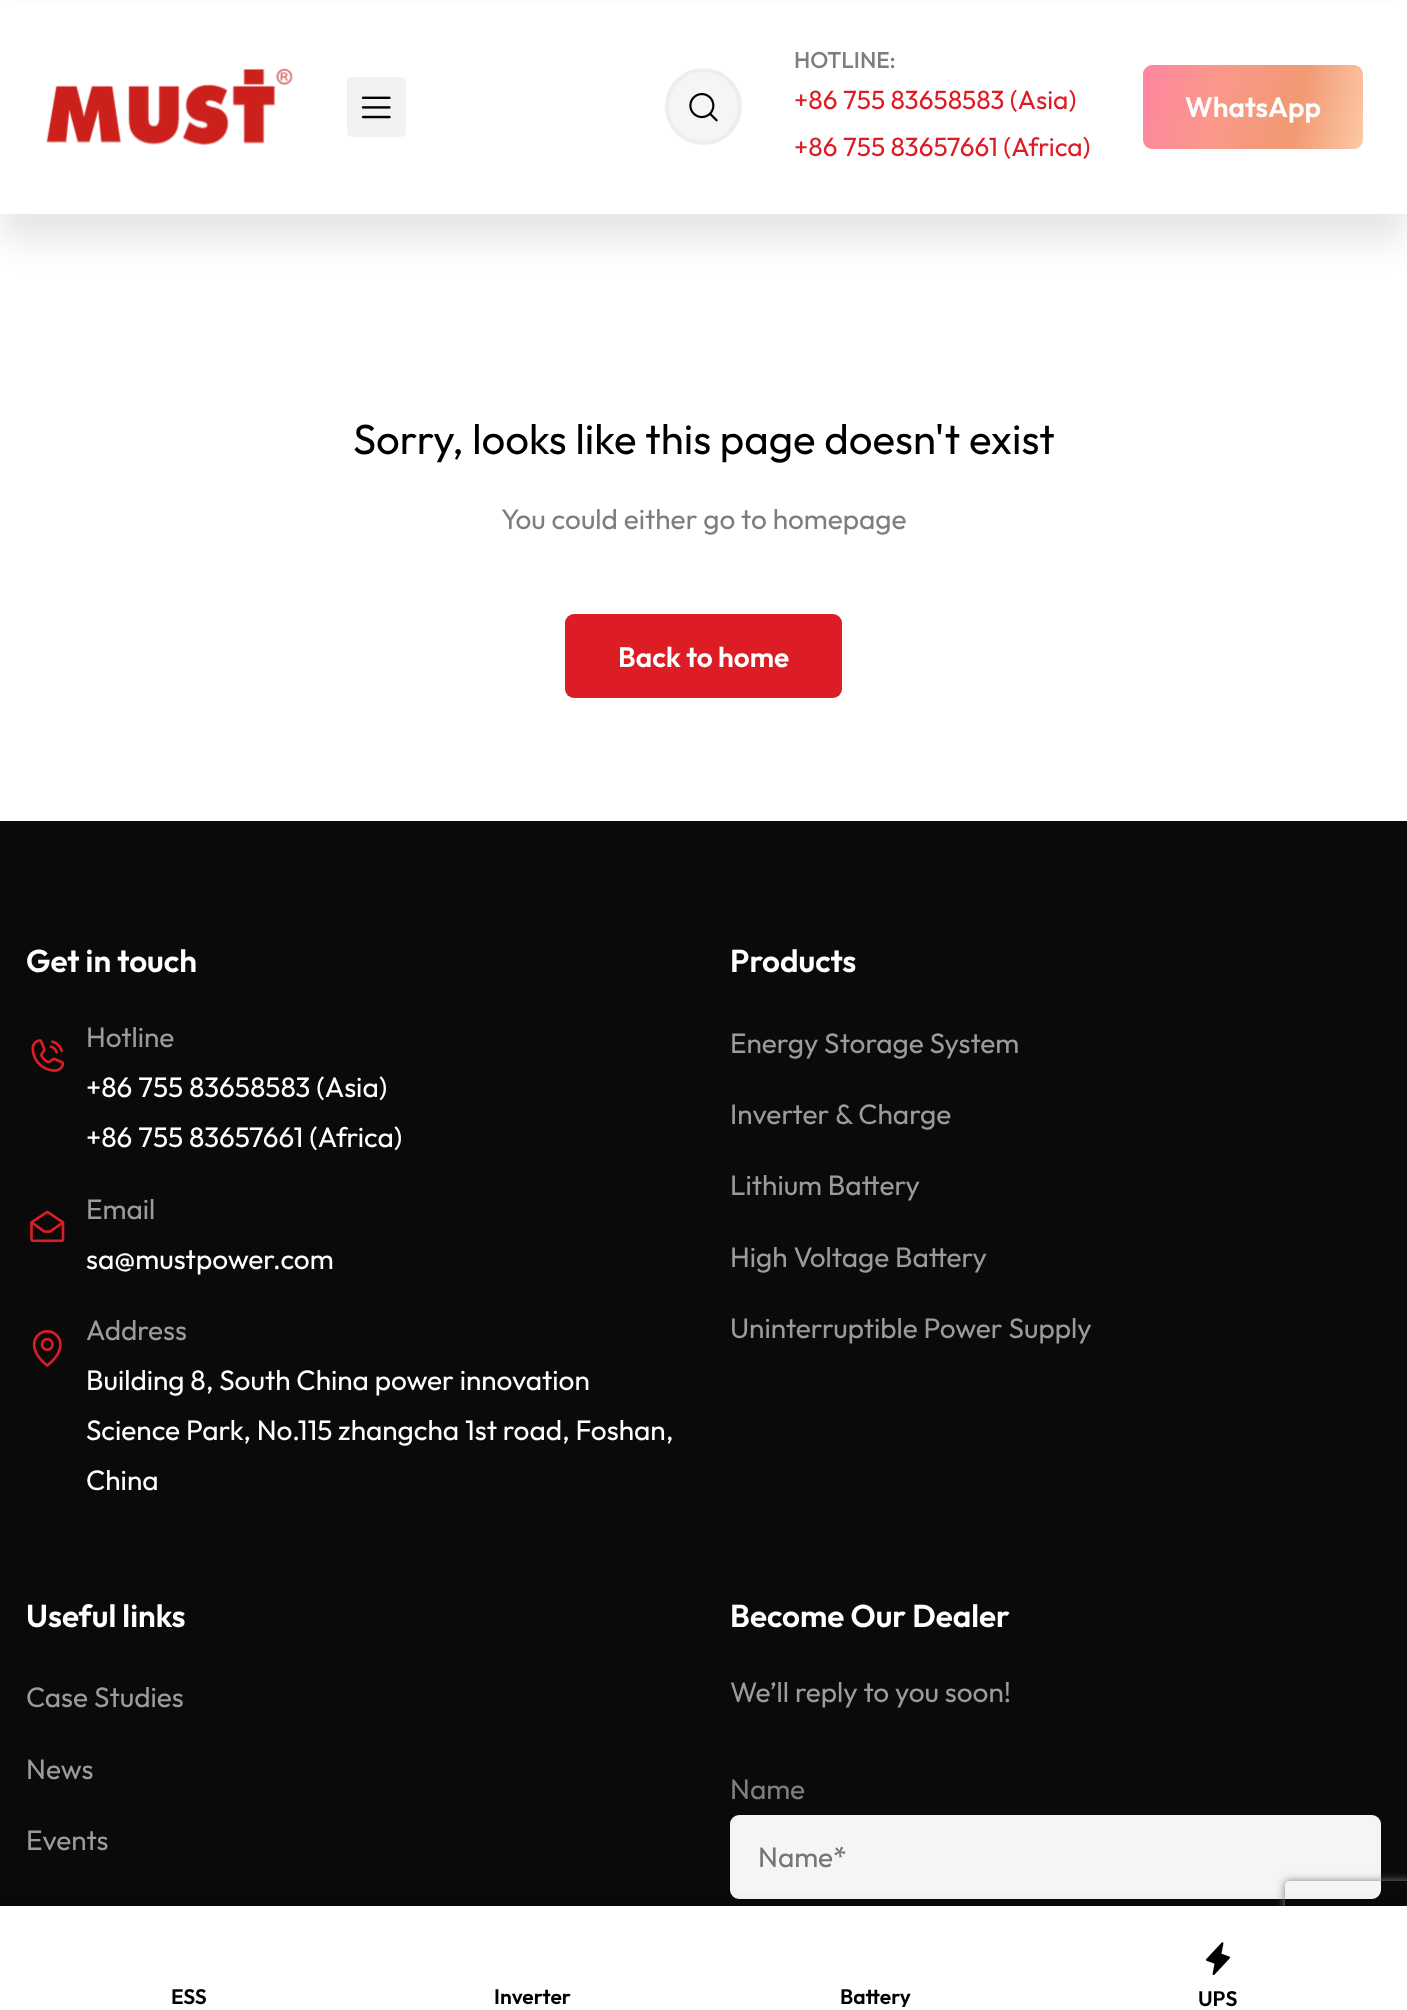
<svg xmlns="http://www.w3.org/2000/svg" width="1407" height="2010">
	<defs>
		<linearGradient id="g1" gradientUnits="userSpaceOnUse" x1="1139" y1="84" x2="1379" y2="132"><stop offset="0.02" stop-color="#FF869F" /><stop offset="0.32" stop-color="#FA988A" /><stop offset="0.66" stop-color="#F19A73" /><stop offset="1" stop-color="#FFD0B1" /></linearGradient>
		<clipPath id="clip1"><path d="M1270 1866H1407V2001H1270ZM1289 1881H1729C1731 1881 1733 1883 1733 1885V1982C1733 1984 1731 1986 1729 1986H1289C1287 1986 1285 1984 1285 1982V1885C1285 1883 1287 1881 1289 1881Z" clip-rule="evenodd" /></clipPath>
		<clipPath id="clip2"><rect x="721" y="1978" width="308" height="29" /></clipPath>
	</defs>
	<rect width="100%" height="100%" fill="#FFFFFF" />
	<rect x="0" y="26" width="1407" height="214" fill="#000000" fill-opacity="0.1" filter="blur(17.5px)" />
	<rect x="0" y="4" width="1407" height="210" fill="#FFFFFF" />
	<image x="46" y="68" width="247" height="78" href="assets/img1.png" />
	<rect x="347" y="77" width="59" height="60" rx="5" fill="#F2F2F2" />
	<image x="361" y="96" width="30" height="23" href="assets/img2.png" />
	<circle cx="703.5" cy="106.5" r="36.5" fill="#F5F5F5" stroke="#EEEEEE" stroke-width="4" />
	<image x="689" y="93" width="29" height="29" href="assets/img3.png" />
	<text x="794" y="68" font-family="Outfit" font-size="22.75" font-weight="500" fill="#7E7E7E">HOTLINE:</text>
	<g font-family="Outfit" font-size="26.25" fill="#DD1D26">
		<text x="794" y="109">+86 755 83658583 (Asia)</text>
		<text x="794" y="156">+86 755 83657661 (Africa)</text>
	</g>
	<rect x="1143" y="65" width="220" height="84" rx="9" fill="url(#g1)" />
	<text x="1185" y="117" font-family="Outfit" font-size="28" font-weight="600" fill="#FFFFFF">WhatsApp</text>
	<text x="353" y="454" font-family="Outfit" font-size="42" fill="#000000">Sorry, looks like this page doesn't exist</text>
	<text x="501" y="529" font-family="Outfit" font-size="28" fill="#7E7E7E">You could either go to homepage</text>
	<rect x="565" y="614" width="277" height="84" rx="9" fill="#DD1D26" />
	<text x="618" y="667" font-family="Outfit" font-size="28" font-weight="600" fill="#FFFFFF">Back to home</text>
	<rect x="0" y="821" width="1407" height="1085" fill="#0A0A0A" />
	<text x="26" y="972" font-family="Outfit" font-size="31.5" font-weight="600" fill="#FFFFFF">Get in touch</text>
	<image x="31" y="1039" width="34" height="33" href="assets/img4.png" />
	<text x="86" y="1047" font-family="Outfit" font-size="28" fill="#9B9B9B">Hotline</text>
	<g font-family="Outfit" font-size="28" fill="#FFFFFF">
		<text x="86" y="1097">+86 755 83658583 (Asia)</text>
		<text x="86" y="1147">+86 755 83657661 (Africa)</text>
	</g>
	<image x="30" y="1210" width="35" height="33" href="assets/img5.png" />
	<text x="86" y="1219" font-family="Outfit" font-size="28" fill="#9B9B9B">Email</text>
	<text x="86" y="1269" font-family="Outfit" font-size="28" fill="#FFFFFF">sa@mustpower.com</text>
	<image x="32" y="1330" width="30" height="37" href="assets/img6.png" />
	<text x="86" y="1340" font-family="Outfit" font-size="28" fill="#9B9B9B">Address</text>
	<g font-family="Outfit" font-size="28" fill="#FFFFFF">
		<text x="86" y="1390">Building 8, South China power innovation</text>
		<text x="86" y="1440">Science Park, No.115 zhangcha 1st road, Foshan,</text>
		<text x="86" y="1490">China</text>
	</g>
	<text x="730" y="972" font-family="Outfit" font-size="31.5" font-weight="600" fill="#FFFFFF">Products</text>
	<g font-family="Outfit" font-size="28" fill="#9B9B9B">
		<text x="730" y="1053">Energy Storage System</text>
		<text x="730" y="1124">Inverter &amp; Charge</text>
		<text x="730" y="1195">Lithium Battery</text>
		<text x="730" y="1267">High Voltage Battery</text>
		<text x="730" y="1338">Uninterruptible Power Supply</text>
	</g>
	<text x="26" y="1627" font-family="Outfit" font-size="31.5" font-weight="600" fill="#FFFFFF">Useful links</text>
	<g font-family="Outfit" font-size="28" fill="#9B9B9B">
		<text x="26" y="1707">Case Studies</text>
		<text x="26" y="1779">News</text>
		<text x="26" y="1850">Events</text>
	</g>
	<text x="730" y="1627" font-family="Outfit" font-size="31.5" font-weight="600" fill="#FFFFFF">Become Our Dealer</text>
	<text x="730" y="1702" font-family="Outfit" font-size="28" fill="#9B9B9B">We’ll reply to you soon!</text>
	<text x="730" y="1799" font-family="Outfit" font-size="28" fill="#7E7E7E">Name</text>
	<rect x="731" y="1816" width="649" height="82" rx="8" fill="#F5F5F5" stroke="#F5F5F5" stroke-width="2" />
	<text x="758" y="1867" font-family="Outfit" font-size="28" fill="#757575">Name*</text>
	<rect x="0" y="1906" width="1407" height="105" fill="#000000" fill-opacity="0.1" filter="blur(9px)" />
	<g clip-path="url(#clip1)">
		<rect x="1285" y="1881" width="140" height="105" rx="4" fill="#808080" filter="blur(4.5px)" />
	</g>
	<rect x="0" y="1906" width="1407" height="104" fill="#FFFFFF" />
	<g font-family="Outfit" font-size="21" font-weight="600" fill="#000000">
		<text x="171" y="2004">ESS</text>
		<text x="494" y="2004">Inverter</text>
	</g>
	<g clip-path="url(#clip2)">
		<text x="840" y="2004" font-family="Outfit" font-size="21" font-weight="600" fill="#000000">Battery</text>
	</g>
	<image x="1206" y="1942" width="24" height="34" href="assets/img7.png" />
	<text x="1198" y="2006" font-family="Outfit" font-size="21" font-weight="600" fill="#000000">UPS</text>
</svg>
